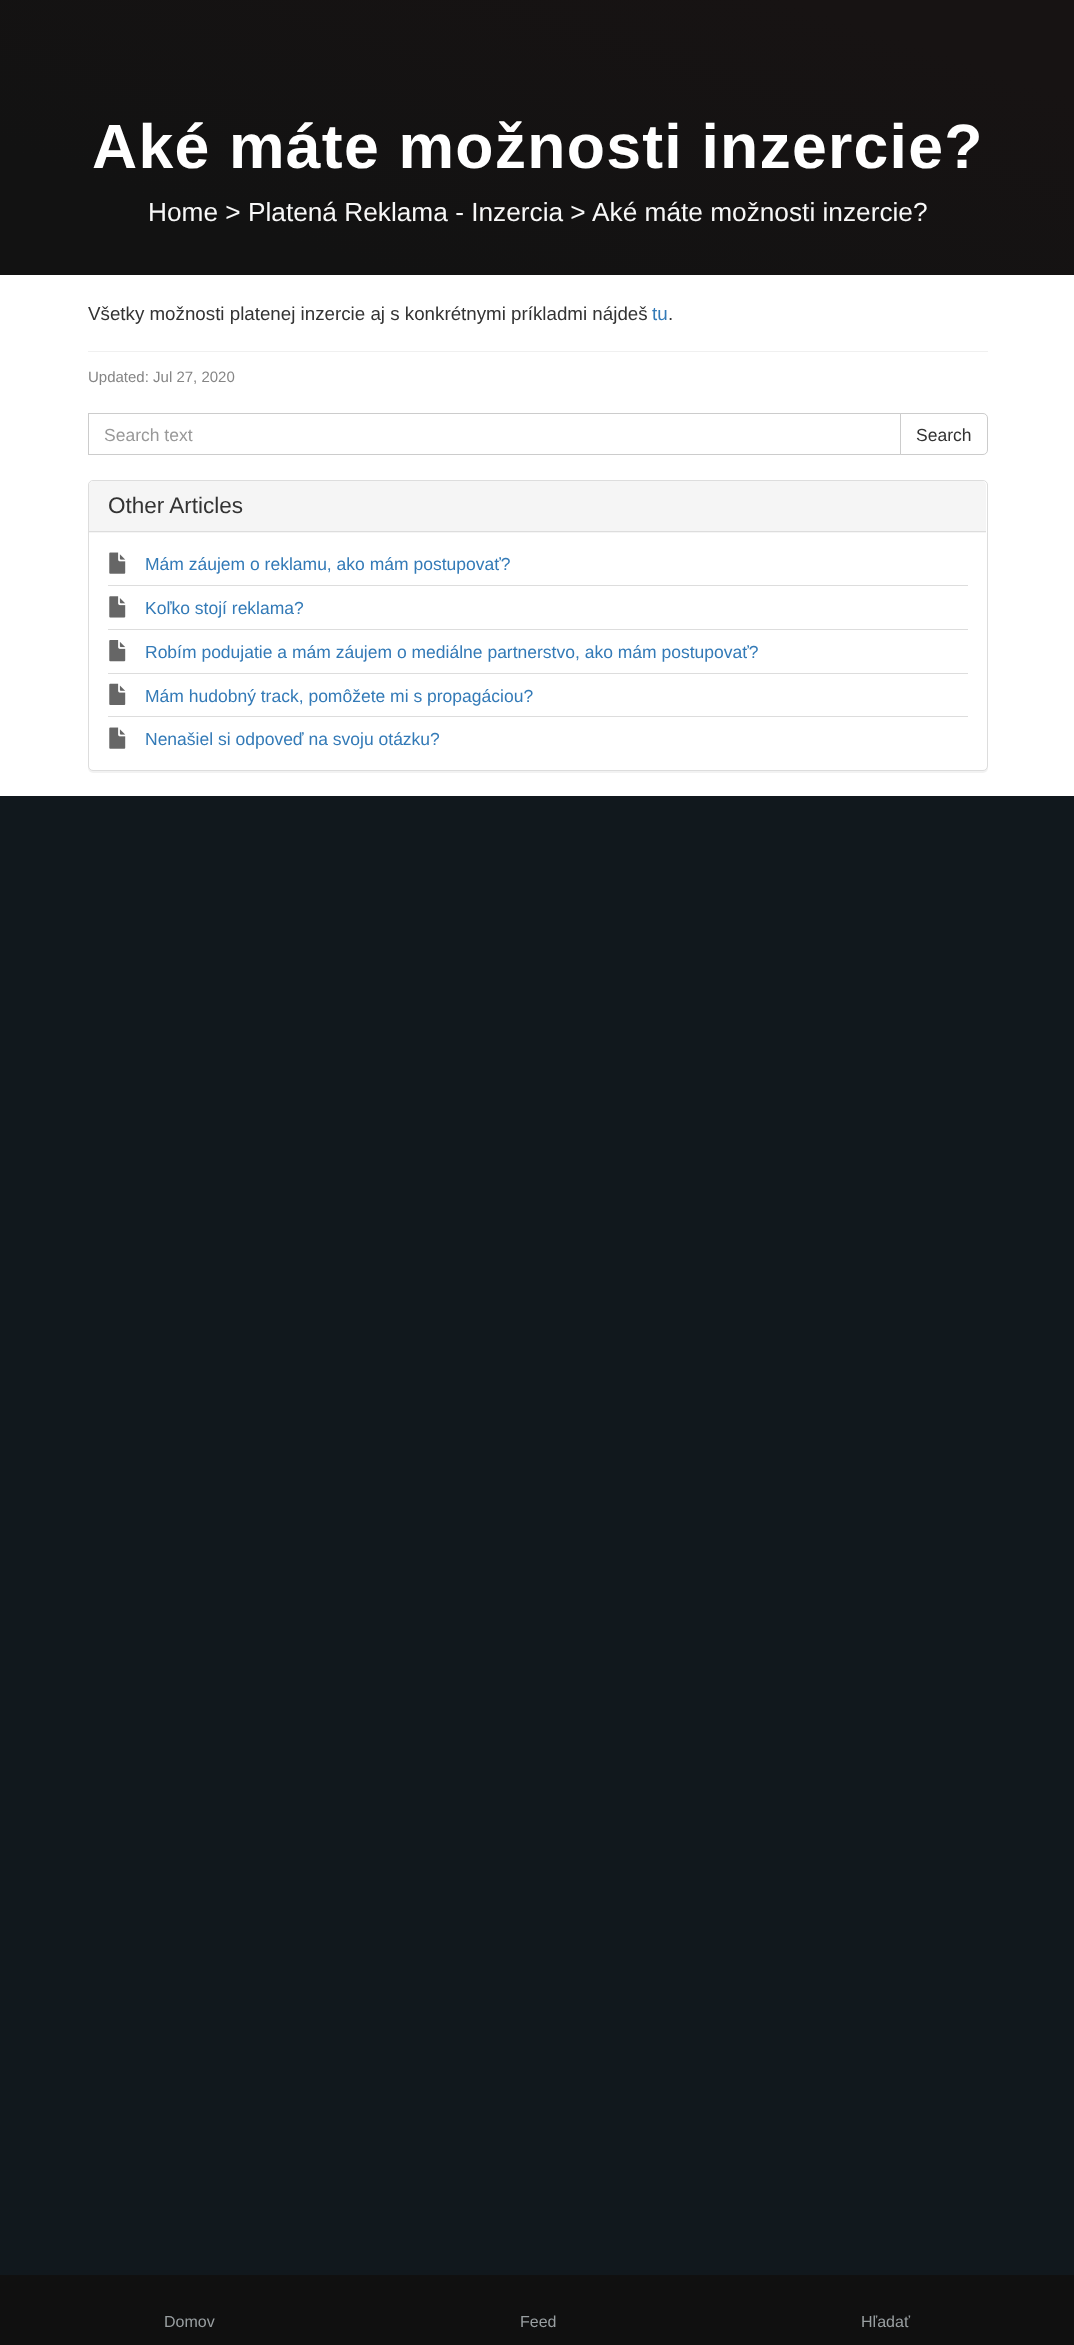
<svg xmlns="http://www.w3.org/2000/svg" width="1074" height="2345">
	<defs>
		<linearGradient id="g1" gradientUnits="userSpaceOnUse" x1="633" y1="-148" x2="442" y2="423"><stop offset="0.15" stop-color="#171313" /><stop offset="0.8" stop-color="#121212" /></linearGradient>
	</defs>
	<rect width="100%" height="100%" fill="#11181D" />
	<rect x="0" y="275" width="1074" height="521" fill="#FFFFFF" />
	<rect x="0" y="0" width="1074" height="275" fill="url(#g1)" />
	<text x="92" y="168" font-family="Liberation Sans" font-size="62.5" font-weight="700" letter-spacing="1.25" fill="#FFFFFF">Aké máte možnosti inzercie?</text>
	<g font-family="Liberation Sans" font-size="26.25" fill="#F8F8F8">
		<text x="148" y="221">Home &gt; Platená Reklama - Inzercia &gt;</text>
		<text x="592" y="221">Aké máte možnosti inzercie?</text>
	</g>
	<text x="88" y="320" font-family="Liberation Sans" font-size="18.75" fill="#333333">Všetky možnosti platenej inzercie aj s konkrétnymi príkladmi nájdeš</text>
	<text x="652" y="320" font-family="Liberation Sans" font-size="18.75" fill="#337AB7">tu</text>
	<text x="668" y="320" font-family="Liberation Sans" font-size="18.75" fill="#333333">.</text>
	<rect x="88" y="351" width="900" height="1" fill="#F0F0F0" />
	<text x="88" y="382" font-family="Liberation Sans" font-size="15" fill="#858585">Updated: Jul 27, 2020</text>
	<rect x="88.5" y="413.5" width="812" height="41" fill="none" stroke="#CCCCCC" />
	<text x="104" y="441" font-family="Liberation Sans" font-size="17.5" fill="#999999">Search text</text>
	<path d="M900.5 413.5H983C985.5 413.5 987.5 415.5 987.5 418V450C987.5 452.5 985.5 454.5 983 454.5H900.5Z" fill="#FFFFFF" stroke="#CCCCCC" />
	<text x="916" y="441" font-family="Liberation Sans" font-size="17.5" fill="#333333">Search</text>
	<rect x="88" y="481" width="900" height="292" rx="5" fill="#000000" fill-opacity="0.05" filter="blur(0.5px)" />
	<rect x="88.5" y="480.5" width="899" height="290" rx="4.5" fill="#FFFFFF" stroke="#DDDDDD" />
	<path d="M93 481H982C984 481 986 483 986 485V533H89V485C89 483 91 481 93 481Z" fill="#F5F5F5" />
	<rect x="89" y="531" width="897" height="1" fill="#DDDDDD" />
	<text x="108" y="513" font-family="Liberation Sans" font-size="22.5" fill="#333333">Other Articles</text>
	<rect x="108" y="585" width="860" height="1" fill="#DDDDDD" />
	<image x="109" y="552" width="17" height="22" href="assets/img1.png" />
	<text x="145" y="570" font-family="Liberation Sans" font-size="17.5" fill="#337AB7">Mám záujem o reklamu, ako mám postupovať?</text>
	<rect x="108" y="629" width="860" height="1" fill="#DDDDDD" />
	<image x="109" y="596" width="17" height="22" href="assets/img2.png" />
	<text x="145" y="614" font-family="Liberation Sans" font-size="17.5" fill="#337AB7">Koľko stojí reklama?</text>
	<rect x="108" y="673" width="860" height="1" fill="#DDDDDD" />
	<image x="109" y="640" width="17" height="22" href="assets/img3.png" />
	<text x="145" y="658" font-family="Liberation Sans" font-size="17.5" fill="#337AB7">Robím podujatie a mám záujem o mediálne partnerstvo, ako mám postupovať?</text>
	<image x="109" y="683" width="17" height="22" href="assets/img4.png" />
	<text x="145" y="702" font-family="Liberation Sans" font-size="17.5" fill="#337AB7">Mám hudobný track, pomôžete mi s propagáciou?</text>
	<rect x="108" y="716" width="860" height="1" fill="#DDDDDD" />
	<image x="109" y="727" width="17" height="22" href="assets/img1.png" />
	<text x="145" y="745" font-family="Liberation Sans" font-size="17.5" fill="#337AB7">Nenašiel si odpoveď na svoju otázku?</text>
	<rect x="0" y="2275" width="1074" height="70" fill="#101010" />
	<g font-family="Liberation Sans" font-size="16" fill="#999FA1">
		<text x="164" y="2327">Domov</text>
		<text x="520" y="2327">Feed</text>
		<text x="861" y="2327">Hľadať</text>
	</g>
</svg>
